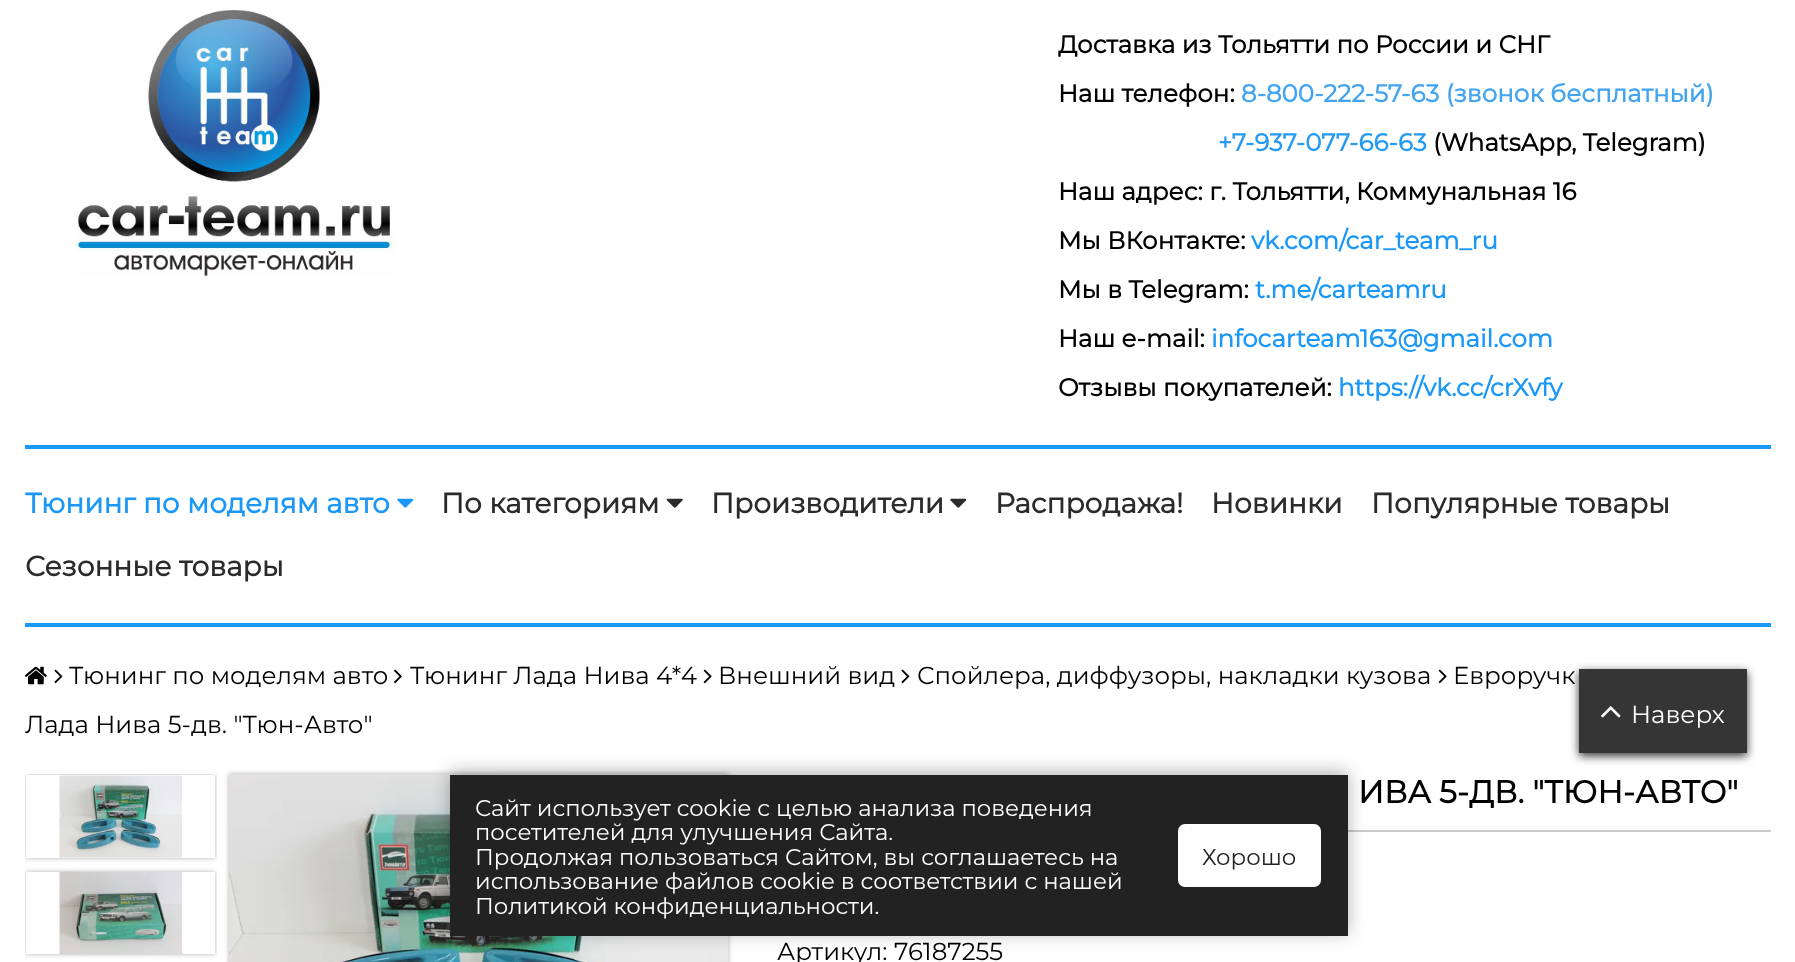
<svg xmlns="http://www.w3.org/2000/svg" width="1795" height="962">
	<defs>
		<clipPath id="clip1"><rect x="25" y="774" width="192" height="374" /></clipPath>
		<clipPath id="clip2"><path d="M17 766H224V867H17ZM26 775H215V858H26Z" clip-rule="evenodd" /></clipPath>
		<clipPath id="clip3"><path d="M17 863H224V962H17ZM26 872H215V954H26Z" clip-rule="evenodd" /></clipPath>
	</defs>
	<rect width="100%" height="100%" fill="#FFFFFF" />
	<image x="74" y="10" width="321" height="266" href="assets/img1.png" />
	<g font-family="Montserrat" font-size="24.5" font-weight="700" fill="#000000">
		<text x="1058" y="53">Доставка из Тольятти по России и СНГ</text>
		<text x="1058" y="102">Наш телефон:</text>
	</g>
	<text x="1241" y="102" font-family="Montserrat" font-size="24.5" font-weight="700" fill="#43A5F0">8-800-222-57-63 (звонок бесплатный)</text>
	<text x="1218" y="151" font-family="Montserrat" font-size="24.5" font-weight="700" fill="#279AF2">+7-937-077-66-63</text>
	<g font-family="Montserrat" font-size="24.5" font-weight="700" fill="#000000">
		<text x="1433" y="151">(WhatsApp, Telegram)</text>
		<text x="1058" y="200">Наш адрес: г. Тольятти, Коммунальная 16</text>
		<text x="1058" y="249">Мы ВКонтакте:</text>
	</g>
	<text x="1251" y="249" font-family="Montserrat" font-size="24.5" font-weight="700" fill="#1B98F7">vk.com/car_team_ru</text>
	<text x="1058" y="298" font-family="Montserrat" font-size="24.5" font-weight="700" fill="#000000">Мы в Telegram:</text>
	<text x="1255" y="298" font-family="Montserrat" font-size="24.5" font-weight="700" fill="#1B98F7">t.me/carteamru</text>
	<text x="1058" y="347" font-family="Montserrat" font-size="24.5" font-weight="700" fill="#000000">Наш e-mail:</text>
	<text x="1211" y="347" font-family="Montserrat" font-size="24.5" font-weight="700" fill="#1B98F7">infocarteam163@gmail.com</text>
	<text x="1058" y="396" font-family="Montserrat" font-size="24.5" font-weight="700" fill="#000000">Отзывы покупателей:</text>
	<text x="1338" y="396" font-family="Montserrat" font-size="24.5" font-weight="700" fill="#1B98F7">https://vk.cc/crXvfy</text>
	<rect x="25" y="445" width="1746" height="4" fill="#1B98F7" />
	<rect x="25" y="623" width="1746" height="4" fill="#1B98F7" />
	<text x="25" y="513" font-family="Montserrat" font-size="28" font-weight="700" fill="#1B98F7">Тюнинг по моделям авто</text>
	<image x="397" y="498" width="17" height="10" href="assets/img2.png" />
	<text x="441" y="513" font-family="Montserrat" font-size="28" font-weight="700" fill="#2B2B2B">По категориям</text>
	<image x="666" y="498" width="17" height="10" href="assets/img3.png" />
	<text x="711" y="513" font-family="Montserrat" font-size="28" font-weight="700" fill="#2B2B2B">Производители</text>
	<image x="950" y="498" width="17" height="10" href="assets/img4.png" />
	<g font-family="Montserrat" font-size="28" font-weight="700" fill="#2B2B2B">
		<text x="995" y="513">Распродажа!</text>
		<text x="1211" y="513">Новинки</text>
		<text x="1371" y="513">Популярные товары</text>
		<text x="25" y="576">Сезонные товары</text>
	</g>
	<image x="24" y="666" width="23" height="19" href="assets/img5.png" />
	<image x="54" y="669" width="9" height="15" href="assets/img6.png" />
	<text x="69" y="684" font-family="Montserrat" font-size="24.5" font-weight="100" fill="#000000">Тюнинг по моделям авто</text>
	<image x="394" y="669" width="8" height="15" href="assets/img7.png" />
	<text x="410" y="684" font-family="Montserrat" font-size="24.5" font-weight="100" fill="#000000">Тюнинг Лада Нива 4*4</text>
	<image x="703" y="669" width="9" height="15" href="assets/img8.png" />
	<text x="718" y="684" font-family="Montserrat" font-size="24.5" font-weight="100" fill="#000000">Внешний вид</text>
	<image x="901" y="669" width="9" height="15" href="assets/img6.png" />
	<text x="917" y="684" font-family="Montserrat" font-size="24.5" font-weight="100" fill="#000000">Спойлера, диффузоры, накладки кузова</text>
	<image x="1438" y="669" width="9" height="15" href="assets/img8.png" />
	<g font-family="Montserrat" font-size="24.5" font-weight="100" fill="#000000">
		<text x="1453" y="684">Евроручк</text>
		<text x="25" y="733">Лада Нива 5-дв. "Тюн-Авто"</text>
	</g>
	<g clip-path="url(#clip1)">
		<g clip-path="url(#clip2)">
			<rect x="26" y="775" width="189" height="83" fill="#000000" fill-opacity="0.3" filter="blur(2.5px)" />
		</g>
	</g>
	<image x="59" y="775" width="123" height="83" href="assets/img9.png" />
	<g clip-path="url(#clip1)">
		<g clip-path="url(#clip3)">
			<rect x="26" y="872" width="189" height="82" fill="#000000" fill-opacity="0.3" filter="blur(2.5px)" />
		</g>
	</g>
	<image x="59" y="871" width="124" height="83" href="assets/img10.png" />
	<rect x="229" y="774" width="499" height="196" fill="#000000" fill-opacity="0.3" filter="blur(2.5px)" />
	<image x="229" y="774" width="499" height="188" href="assets/img11.png" />
	<rect x="1348" y="830" width="423" height="2" fill="#CCCCCC" />
	<text x="1358" y="803" font-family="Montserrat" font-size="31.5" font-weight="700" fill="#000000">ИВА 5-ДВ. "ТЮН-АВТО"</text>
	<text x="777" y="960" font-family="Montserrat" font-size="24.5" font-weight="100" fill="#000000">Артикул: 76187255</text>
	<rect x="1579" y="672" width="168" height="84" fill="#333333" filter="blur(5px)" />
	<rect x="1579" y="669" width="168" height="84" fill="#353535" />
	<image x="1601" y="706" width="20" height="12" href="assets/img12.png" />
	<text x="1631" y="723" font-family="Montserrat" font-size="24.5" font-weight="100" fill="#FFFFFF">Наверх</text>
	<rect x="450" y="772" width="898" height="161" fill="#000000" fill-opacity="0.3" filter="blur(9px)" />
	<rect x="450" y="775" width="898" height="161" fill="#222222" />
	<g font-family="Montserrat" font-size="22.75" font-weight="100" fill="#FFFFFF">
		<text x="475" y="816">Сайт использует cookie с целью анализа поведения</text>
		<text x="475" y="840">посетителей для улучшения Сайта.</text>
		<text x="475" y="865">Продолжая пользоваться Сайтом, вы соглашаетесь на</text>
		<text x="475" y="889">использование файлов cookie в соответствии с нашей</text>
		<text x="475" y="914">Политикой конфиденциальности.</text>
	</g>
	<rect x="1178" y="824" width="143" height="63" rx="7" fill="#FFFFFF" />
	<text x="1202" y="865" font-family="Montserrat" font-size="22.75" font-weight="100" fill="#222222">Хорошо</text>
</svg>
